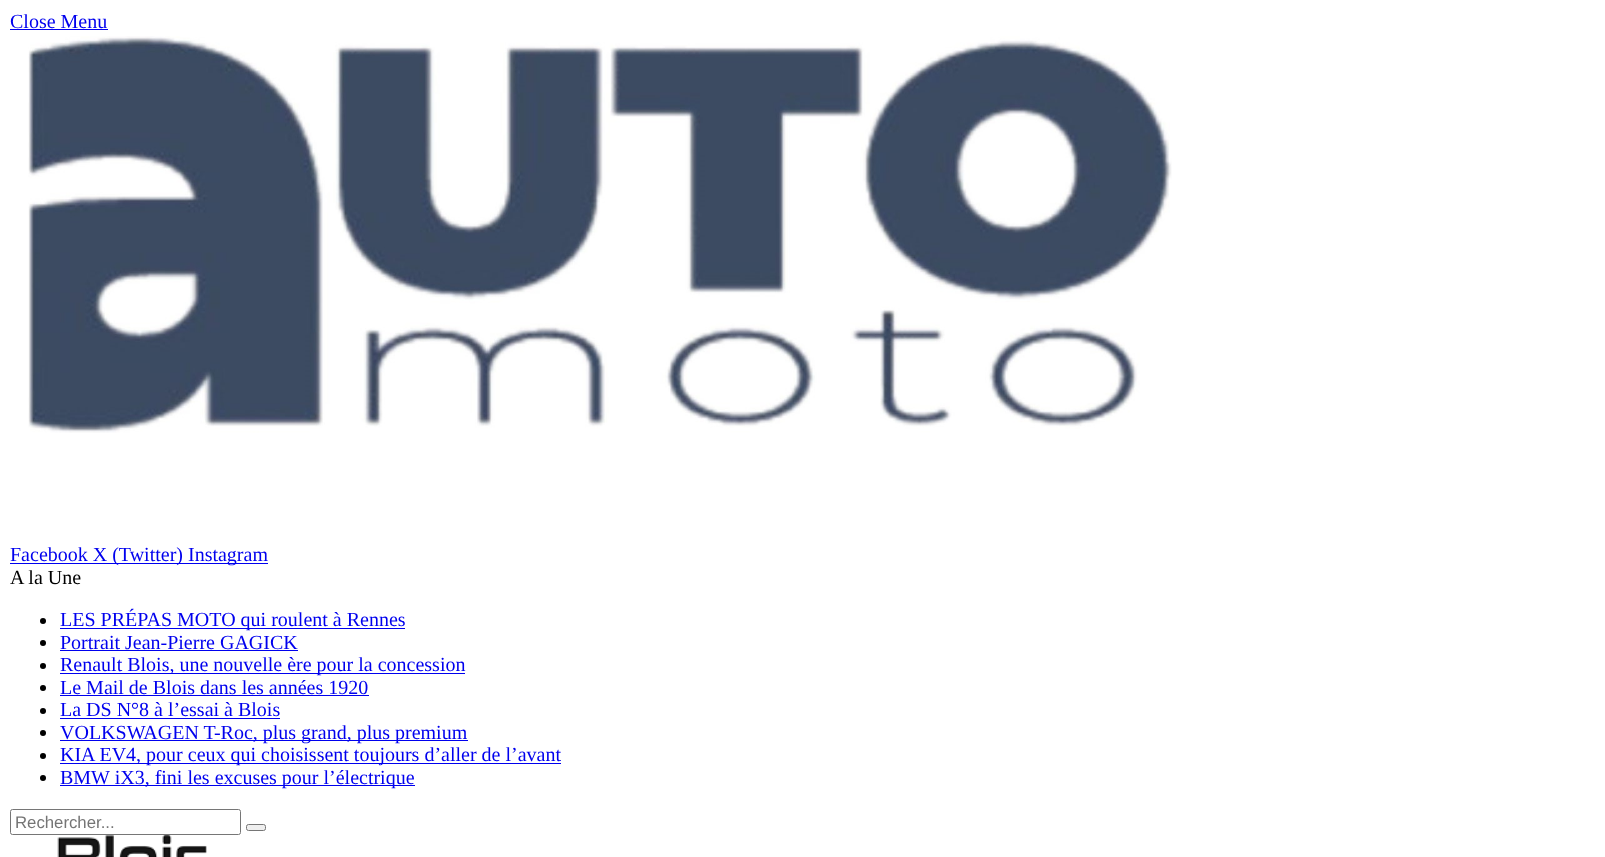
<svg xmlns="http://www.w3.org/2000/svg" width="1605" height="857">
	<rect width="100%" height="100%" fill="#FFFFFF" />
	<text x="10" y="28" font-family="Liberation Serif" font-size="20" fill="#0000EE">Close Menu</text>
	<rect x="10" y="29" width="98" height="1" fill="#0000EE" />
	<image x="28" y="36" width="1144" height="397" href="assets/img1.png" />
	<rect x="10" y="563" width="258" height="1" fill="#0000EE" />
	<text x="10" y="561" font-family="Liberation Serif" font-size="20" fill="#0000EE">Facebook X (Twitter) Instagram</text>
	<text x="10" y="584" font-family="Liberation Serif" font-size="20" fill="#000000">A la Une</text>
	<circle cx="43" cy="621" r="3" fill="#000000" />
	<rect x="60" y="628" width="345" height="1" fill="#0000EE" />
	<text x="60" y="626" font-family="Liberation Serif" font-size="20" fill="#0000EE">LES PRÉPAS MOTO qui roulent à Rennes</text>
	<circle cx="43" cy="643" r="3" fill="#000000" />
	<text x="60" y="649" font-family="Liberation Serif" font-size="20" fill="#0000EE">Portrait Jean-Pierre GAGICK</text>
	<rect x="60" y="650" width="238" height="1" fill="#0000EE" />
	<circle cx="43" cy="666" r="3" fill="#000000" />
	<rect x="60" y="673" width="405" height="1" fill="#0000EE" />
	<text x="60" y="671" font-family="Liberation Serif" font-size="20" fill="#0000EE">Renault Blois, une nouvelle ère pour la concession</text>
	<circle cx="43" cy="688" r="3" fill="#000000" />
	<text x="60" y="694" font-family="Liberation Serif" font-size="20" fill="#0000EE">Le Mail de Blois dans les années 1920</text>
	<rect x="60" y="695" width="309" height="1" fill="#0000EE" />
	<circle cx="43" cy="711" r="3" fill="#000000" />
	<text x="60" y="716" font-family="Liberation Serif" font-size="20" fill="#0000EE">La DS N°8 à l’essai à Blois</text>
	<rect x="60" y="718" width="220" height="1" fill="#0000EE" />
	<circle cx="43" cy="733" r="3" fill="#000000" />
	<rect x="60" y="740" width="408" height="1" fill="#0000EE" />
	<text x="60" y="739" font-family="Liberation Serif" font-size="20" fill="#0000EE">VOLKSWAGEN T-Roc, plus grand, plus premium</text>
	<circle cx="43" cy="756" r="3" fill="#000000" />
	<rect x="60" y="763" width="501" height="1" fill="#0000EE" />
	<text x="60" y="761" font-family="Liberation Serif" font-size="20" fill="#0000EE">KIA EV4, pour ceux qui choisissent toujours d’aller de l’avant</text>
	<circle cx="43" cy="778" r="3" fill="#000000" />
	<rect x="60" y="785" width="355" height="1" fill="#0000EE" />
	<text x="60" y="784" font-family="Liberation Serif" font-size="20" fill="#0000EE">BMW iX3, fini les excuses pour l’électrique</text>
	<rect x="10.5" y="809.5" width="230" height="25" rx="2" fill="none" stroke="#767676" />
	<text x="15" y="828" font-family="Liberation Sans" font-size="16.75" fill="#757575">Rechercher...</text>
	<rect x="246.5" y="824.5" width="19" height="6" rx="2" fill="#EFEFEF" stroke="#767676" />
	<image x="57" y="835" width="150" height="22" href="assets/img2.png" />
</svg>
